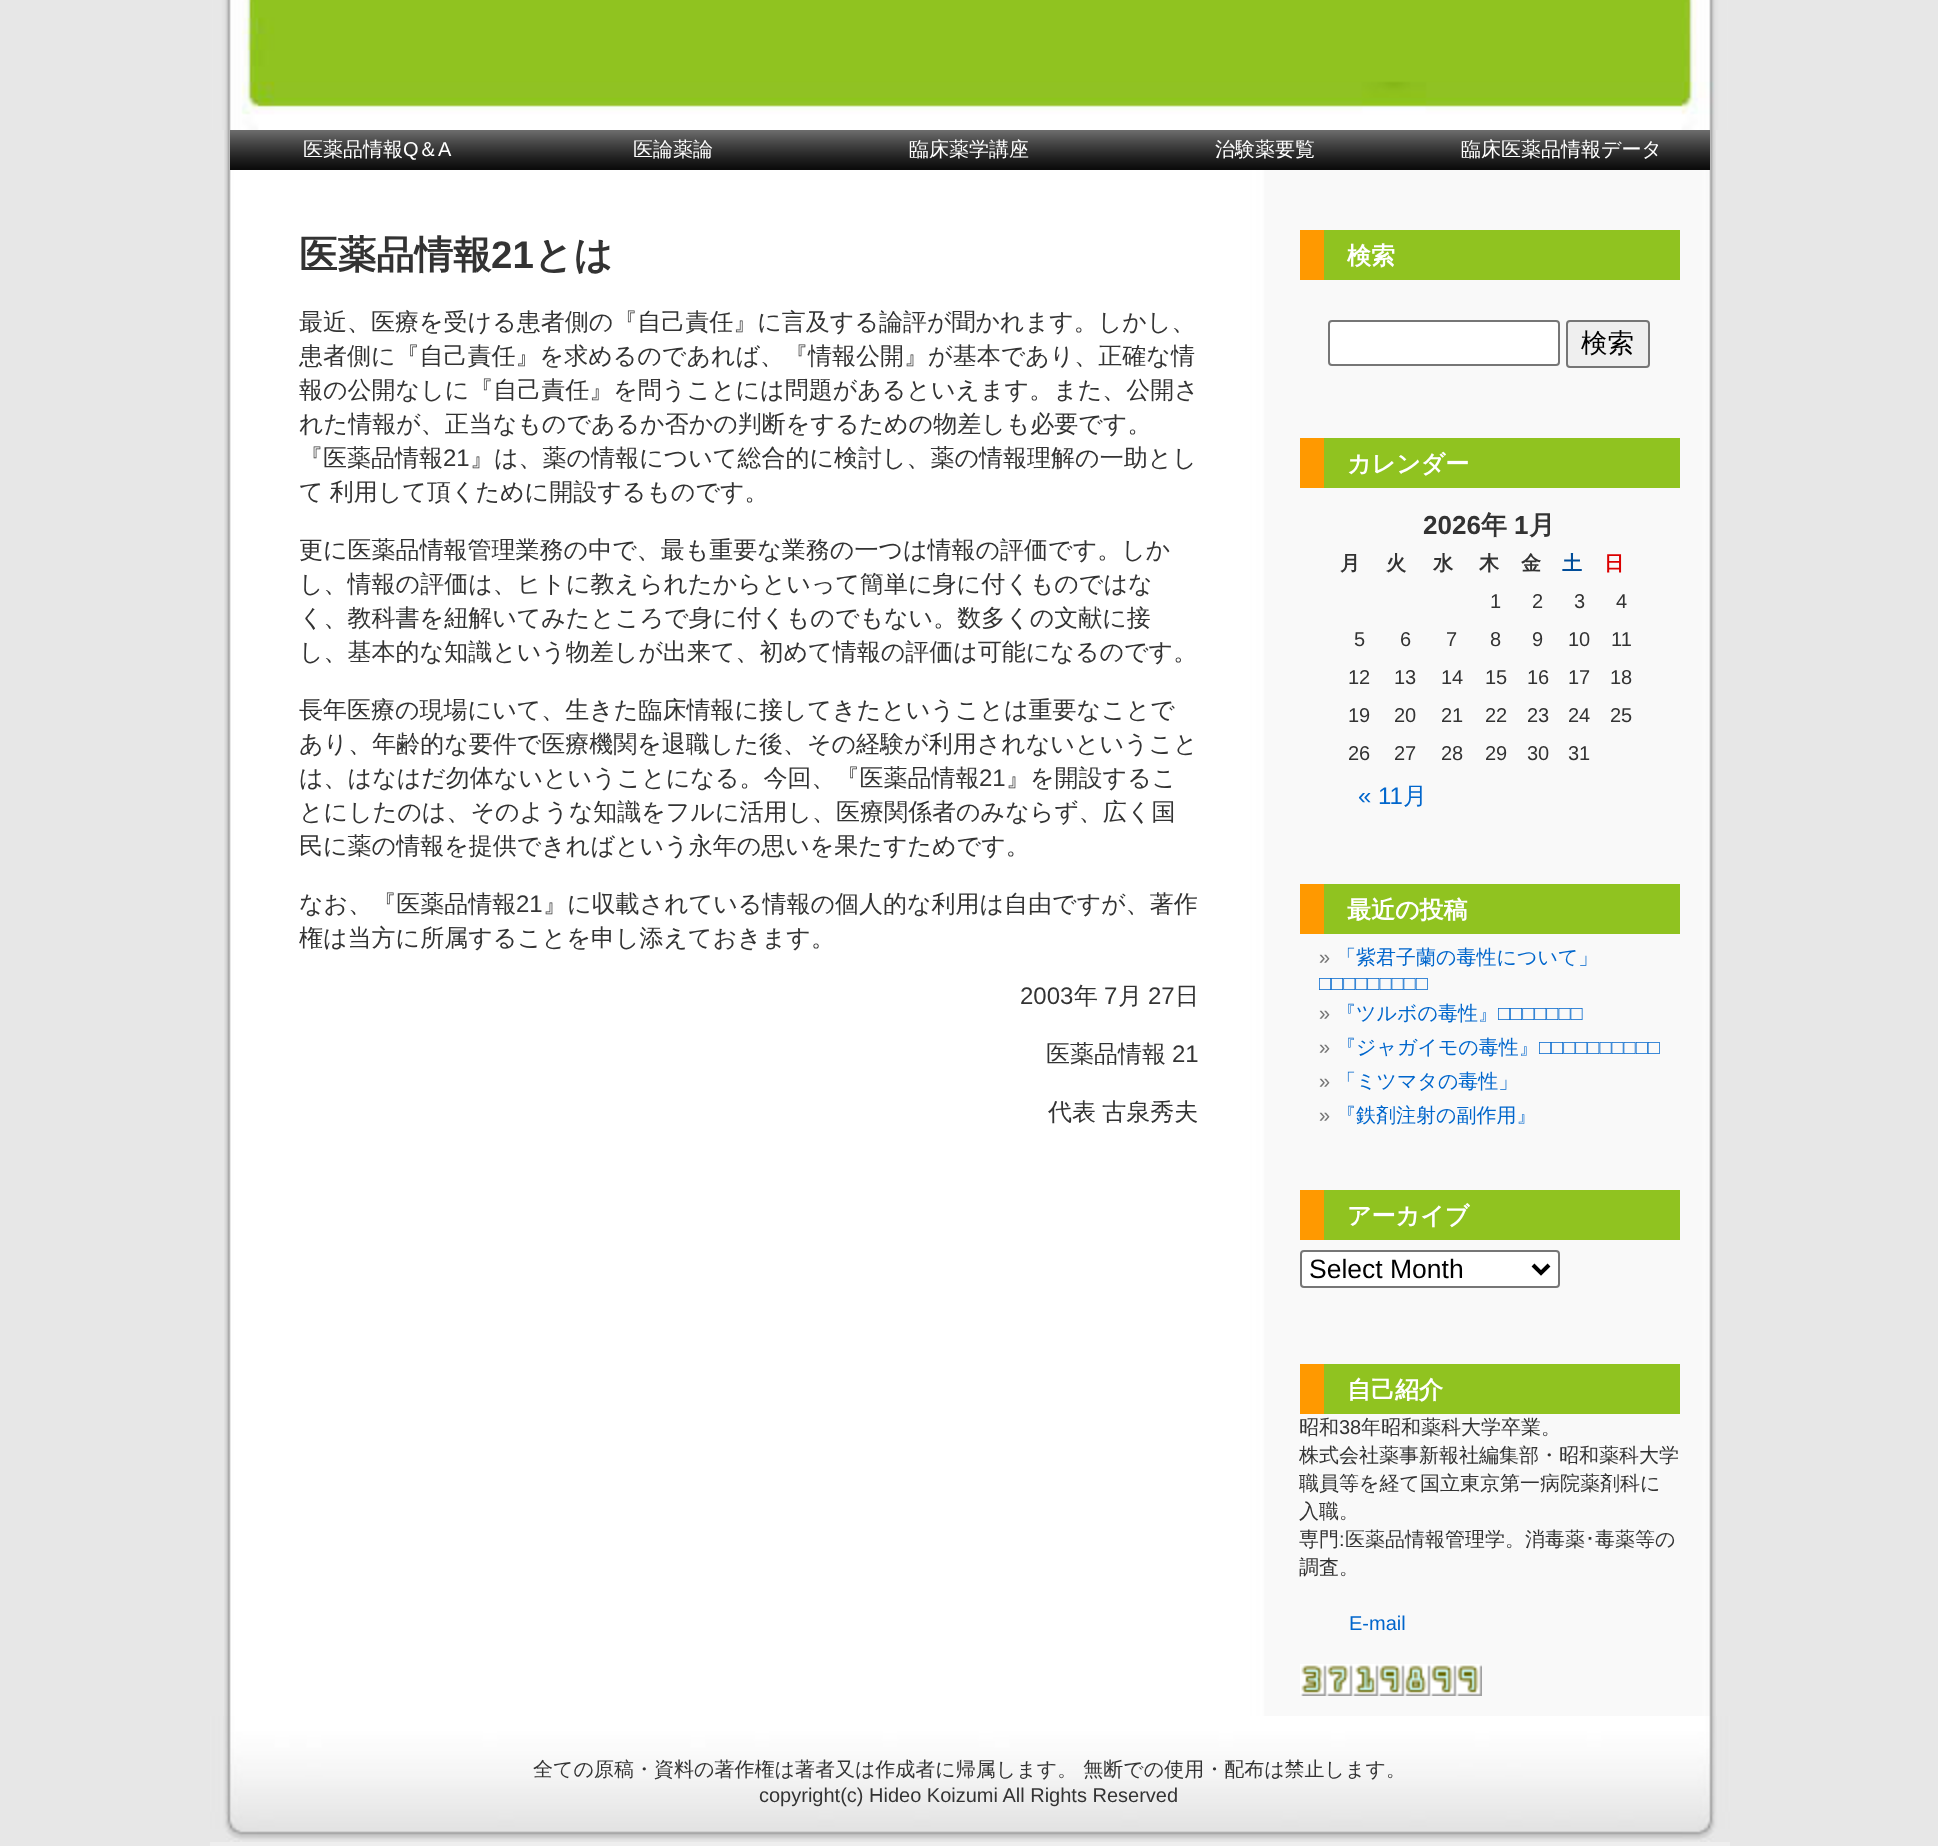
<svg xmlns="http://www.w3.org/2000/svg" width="1938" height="1846">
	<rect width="100%" height="100%" fill="#E7E7E7" />
	<image x="224" y="130" width="1492" height="1586" href="assets/img1.png" />
	<image x="212" y="0" width="1516" height="130" href="assets/img2.png" />
	<image x="230" y="130" width="296" height="40" href="assets/img3.png" />
	<text x="303" y="156" font-family="WenQuanYi Zen Hei" font-size="20" font-weight="500" fill="#FFFFFF">医薬品情報</text>
	<text x="403" y="156" font-family="Liberation Sans" font-size="20" fill="#FFFFFF">Q</text>
	<text x="418" y="156" font-family="WenQuanYi Zen Hei" font-size="20" font-weight="500" fill="#FFFFFF">＆</text>
	<text x="438" y="156" font-family="Liberation Sans" font-size="20" fill="#FFFFFF">A</text>
	<image x="526" y="130" width="296" height="40" href="assets/img3.png" />
	<text x="633" y="156" font-family="WenQuanYi Zen Hei" font-size="20" font-weight="500" fill="#FFFFFF">医論薬論</text>
	<image x="822" y="130" width="296" height="40" href="assets/img3.png" />
	<text x="909" y="156" font-family="WenQuanYi Zen Hei" font-size="20" font-weight="500" fill="#FFFFFF">臨床薬学講座</text>
	<image x="1118" y="130" width="296" height="40" href="assets/img3.png" />
	<text x="1215" y="156" font-family="WenQuanYi Zen Hei" font-size="20" font-weight="500" fill="#FFFFFF">治験薬要覧</text>
	<image x="1414" y="130" width="296" height="40" href="assets/img3.png" />
	<text x="1461" y="156" font-family="WenQuanYi Zen Hei" font-size="20" font-weight="500" fill="#FFFFFF">臨床医薬品情報データ</text>
	<text x="299" y="268" font-family="WenQuanYi Zen Hei" font-size="38.5" font-weight="700" fill="#333333">医薬品情報</text>
	<text x="491" y="268" font-family="Liberation Sans" font-size="38.5" font-weight="700" fill="#333333">21</text>
	<text x="534" y="268" font-family="WenQuanYi Zen Hei" font-size="38.5" font-weight="700" fill="#333333">とは</text>
	<g font-family="WenQuanYi Zen Hei" font-size="24" font-weight="500" fill="#333333">
		<text x="299" y="330">最近、医療を受ける患者側の『自己責任』に言及する論評が聞かれます。しかし、</text>
		<text x="299" y="364">患者側に『自己責任』を求めるのであれば、『情報公開』が基本であり、正確な情</text>
		<text x="299" y="398">報の公開なしに『自己責任』を問うことには問題があるといえます。また、公開さ</text>
		<text x="299" y="432">れた情報が、正当なものであるか否かの判断をするための物差しも必要です。</text>
		<text x="299" y="466">『医薬品情報</text>
	</g>
	<text x="443" y="466" font-family="Liberation Sans" font-size="24" fill="#333333">21</text>
	<g font-family="WenQuanYi Zen Hei" font-size="24" font-weight="500" fill="#333333">
		<text x="470" y="466">』は、薬の情報について総合的に検討し、薬の情報理解の一助とし</text>
		<text x="299" y="500" word-spacing="-1">て 利用して頂くために開設するものです。</text>
		<text x="299" y="558">更に医薬品情報管理業務の中で、最も重要な業務の一つは情報の評価です。しか</text>
		<text x="299" y="592">し、情報の評価は、ヒトに教えられたからといって簡単に身に付くものではな</text>
		<text x="299" y="626">く、教科書を紐解いてみたところで身に付くものでもない。数多くの文献に接</text>
		<text x="299" y="660">し、基本的な知識という物差しが出来て、初めて情報の評価は可能になるのです。</text>
		<text x="299" y="718">長年医療の現場にいて、生きた臨床情報に接してきたということは重要なことで</text>
		<text x="299" y="752">あり、年齢的な要件で医療機関を退職した後、その経験が利用されないということ</text>
		<text x="299" y="786">は、はなはだ勿体ないということになる。今回、『医薬品情報</text>
	</g>
	<text x="979" y="786" font-family="Liberation Sans" font-size="24" fill="#333333">21</text>
	<g font-family="WenQuanYi Zen Hei" font-size="24" font-weight="500" fill="#333333">
		<text x="1006" y="786">』を開設するこ</text>
		<text x="299" y="820">とにしたのは、そのような知識をフルに活用し、医療関係者のみならず、広く国</text>
		<text x="299" y="854">民に薬の情報を提供できればという永年の思いを果たすためです。</text>
		<text x="299" y="912">なお、『医薬品情報</text>
	</g>
	<text x="516" y="912" font-family="Liberation Sans" font-size="24" fill="#333333">21</text>
	<g font-family="WenQuanYi Zen Hei" font-size="24" font-weight="500" fill="#333333">
		<text x="543" y="912">』に収載されている情報の個人的な利用は自由ですが、著作</text>
		<text x="299" y="946">権は当方に所属することを申し添えておきます。</text>
	</g>
	<text x="1020" y="1004" font-family="Liberation Sans" font-size="24" fill="#333333">2003</text>
	<text x="1074" y="1004" font-family="WenQuanYi Zen Hei" font-size="24" font-weight="500" fill="#333333">年</text>
	<text x="1104" y="1004" font-family="Liberation Sans" font-size="24" fill="#333333">7</text>
	<text x="1118" y="1004" font-family="WenQuanYi Zen Hei" font-size="24" font-weight="500" fill="#333333">月</text>
	<text x="1148" y="1004" font-family="Liberation Sans" font-size="24" fill="#333333">27</text>
	<g font-family="WenQuanYi Zen Hei" font-size="24" font-weight="500" fill="#333333">
		<text x="1175" y="1004">日</text>
		<text x="1046" y="1062">医薬品情報</text>
	</g>
	<text x="1172" y="1062" font-family="Liberation Sans" font-size="24" fill="#333333">21</text>
	<text x="1048" y="1120" word-spacing="-1" font-family="WenQuanYi Zen Hei" font-size="24" font-weight="500" fill="#333333">代表 古泉秀夫</text>
	<rect x="1324" y="230" width="356" height="50" fill="#90C320" />
	<rect x="1300" y="230" width="24" height="50" fill="#FF9900" />
	<text x="1347" y="264" font-family="WenQuanYi Zen Hei" font-size="24" font-weight="700" fill="#FFFFFF">検索</text>
	<rect x="1329" y="321" width="230" height="44" rx="3" fill="#FFFFFF" stroke="#767676" stroke-width="2" />
	<rect x="1567" y="321" width="82" height="46" rx="3" fill="#EFEFEF" stroke="#767676" stroke-width="2" />
	<text x="1581" y="352" font-family="WenQuanYi Zen Hei" font-size="26.5" font-weight="500" fill="#000000">検索</text>
	<rect x="1324" y="438" width="356" height="50" fill="#90C320" />
	<rect x="1300" y="438" width="24" height="50" fill="#FF9900" />
	<text x="1347" y="472" font-family="WenQuanYi Zen Hei" font-size="24" font-weight="700" fill="#FFFFFF">カレンダー</text>
	<text x="1423" y="534" font-family="Liberation Sans" font-size="26" font-weight="700" fill="#333333">2026</text>
	<text x="1481" y="534" font-family="WenQuanYi Zen Hei" font-size="26" font-weight="700" fill="#333333">年</text>
	<text x="1514" y="534" font-family="Liberation Sans" font-size="26" font-weight="700" fill="#333333">1</text>
	<text x="1529" y="534" font-family="WenQuanYi Zen Hei" font-size="26" font-weight="700" fill="#333333">月</text>
	<g font-family="WenQuanYi Zen Hei" font-size="20" font-weight="700" fill="#333333">
		<text x="1340" y="570">月</text>
		<text x="1386" y="570">火</text>
		<text x="1433" y="570">水</text>
		<text x="1479" y="570">木</text>
		<text x="1521" y="570">金</text>
	</g>
	<text x="1562" y="570" font-family="WenQuanYi Zen Hei" font-size="20" font-weight="700" fill="#004D99">土</text>
	<text x="1604" y="570" font-family="WenQuanYi Zen Hei" font-size="20" font-weight="700" fill="#DB0000">日</text>
	<g font-family="Liberation Sans" font-size="20" fill="#333333">
		<text x="1490" y="608">1</text>
		<text x="1532" y="608">2</text>
		<text x="1574" y="608">3</text>
		<text x="1616" y="608">4</text>
		<text x="1354" y="646">5</text>
		<text x="1400" y="646">6</text>
		<text x="1446" y="646">7</text>
		<text x="1490" y="646">8</text>
		<text x="1532" y="646">9</text>
		<text x="1568" y="646">10</text>
		<text x="1611" y="646">11</text>
		<text x="1348" y="684">12</text>
		<text x="1394" y="684">13</text>
		<text x="1441" y="684">14</text>
		<text x="1485" y="684">15</text>
		<text x="1527" y="684">16</text>
		<text x="1568" y="684">17</text>
		<text x="1610" y="684">18</text>
		<text x="1348" y="722">19</text>
		<text x="1394" y="722">20</text>
		<text x="1441" y="722">21</text>
		<text x="1485" y="722">22</text>
		<text x="1527" y="722">23</text>
		<text x="1568" y="722">24</text>
		<text x="1610" y="722">25</text>
		<text x="1348" y="760">26</text>
		<text x="1394" y="760">27</text>
		<text x="1441" y="760">28</text>
		<text x="1485" y="760">29</text>
		<text x="1527" y="760">30</text>
		<text x="1568" y="760">31</text>
	</g>
	<text x="1358" y="804" font-family="Liberation Sans" font-size="24" fill="#0066CC">« 11</text>
	<text x="1403" y="804" font-family="WenQuanYi Zen Hei" font-size="24" font-weight="500" fill="#0066CC">月</text>
	<rect x="1324" y="884" width="356" height="50" fill="#90C320" />
	<rect x="1300" y="884" width="24" height="50" fill="#FF9900" />
	<text x="1347" y="918" font-family="WenQuanYi Zen Hei" font-size="24" font-weight="700" fill="#FFFFFF">最近の投稿</text>
	<text x="1319" y="964" font-family="Liberation Sans" font-size="20" fill="#777777">»</text>
	<text x="1336" y="964" font-family="WenQuanYi Zen Hei" font-size="20" font-weight="500" fill="#0066CC">「紫君子蘭の毒性について」</text>
	<text x="1319" y="990" font-family="Liberation Sans" font-size="20" fill="#0066CC">□□□□□□□□□</text>
	<text x="1319" y="1020" font-family="Liberation Sans" font-size="20" fill="#777777">»</text>
	<text x="1336" y="1020" font-family="WenQuanYi Zen Hei" font-size="20" font-weight="500" fill="#0066CC">『ツルボの毒性』</text>
	<text x="1498" y="1020" font-family="Liberation Sans" font-size="20" fill="#0066CC">□□□□□□□</text>
	<text x="1319" y="1054" font-family="Liberation Sans" font-size="20" fill="#777777">»</text>
	<text x="1336" y="1054" font-family="WenQuanYi Zen Hei" font-size="20" font-weight="500" fill="#0066CC">『ジャガイモの毒性』</text>
	<text x="1539" y="1054" font-family="Liberation Sans" font-size="20" fill="#0066CC">□□□□□□□□□□</text>
	<text x="1319" y="1088" font-family="Liberation Sans" font-size="20" fill="#777777">»</text>
	<text x="1336" y="1088" font-family="WenQuanYi Zen Hei" font-size="20" font-weight="500" fill="#0066CC">「ミツマタの毒性」</text>
	<text x="1319" y="1122" font-family="Liberation Sans" font-size="20" fill="#777777">»</text>
	<text x="1336" y="1122" font-family="WenQuanYi Zen Hei" font-size="20" font-weight="500" fill="#0066CC">『鉄剤注射の副作用』</text>
	<rect x="1324" y="1190" width="356" height="50" fill="#90C320" />
	<rect x="1300" y="1190" width="24" height="50" fill="#FF9900" />
	<text x="1347" y="1224" font-family="WenQuanYi Zen Hei" font-size="24" font-weight="700" fill="#FFFFFF">アーカイブ</text>
	<rect x="1301" y="1251" width="258" height="36" rx="3" fill="#FFFFFF" stroke="#767676" stroke-width="2" />
	<path d="M1533 1265L1541 1273L1549 1265" fill="none" stroke="#000000" stroke-width="4" />
	<text x="1309" y="1278" font-family="Liberation Sans" font-size="26.5" fill="#000000">Select Month</text>
	<rect x="1324" y="1364" width="356" height="50" fill="#90C320" />
	<rect x="1300" y="1364" width="24" height="50" fill="#FF9900" />
	<text x="1347" y="1398" font-family="WenQuanYi Zen Hei" font-size="24" font-weight="700" fill="#FFFFFF">自己紹介</text>
	<text x="1299" y="1434" font-family="WenQuanYi Zen Hei" font-size="20" font-weight="500" fill="#333333">昭和</text>
	<text x="1339" y="1434" font-family="Liberation Sans" font-size="20" fill="#333333">38</text>
	<g font-family="WenQuanYi Zen Hei" font-size="20" font-weight="500" fill="#333333">
		<text x="1361" y="1434">年昭和薬科大学卒業。</text>
		<text x="1299" y="1462">株式会社薬事新報社編集部・昭和薬科大学</text>
		<text x="1299" y="1490">職員等を経て国立東京第一病院薬剤科に</text>
		<text x="1299" y="1518">入職。</text>
		<text x="1299" y="1546">専門</text>
	</g>
	<text x="1339" y="1546" font-family="Liberation Sans" font-size="20" fill="#333333">:</text>
	<text x="1345" y="1546" font-family="WenQuanYi Zen Hei" font-size="20" font-weight="500" fill="#333333">医薬品情報管理学。消毒薬</text>
	<text x="1585" y="1546" font-family="IPAPGothic" font-size="20" fill="#333333">･</text>
	<g font-family="WenQuanYi Zen Hei" font-size="20" font-weight="500" fill="#333333">
		<text x="1595" y="1546">毒薬等の</text>
		<text x="1299" y="1574">調査。</text>
	</g>
	<text x="1349" y="1630" font-family="Liberation Sans" font-size="20" fill="#0066CC">E-mail</text>
	<image x="1300" y="1664" width="182" height="32" href="assets/img4.png" />
	<rect x="210" y="1842" width="1520" height="4" fill="#EEEEEE" />
	<image x="210" y="1716" width="1520" height="126" href="assets/img5.png" />
	<text x="533" y="1776" font-family="WenQuanYi Zen Hei" font-size="20" font-weight="500" fill="#333333">全ての原稿・資料の著作権は著者又は作成者に帰属します。 無断での使用・配布は禁止します。</text>
	<text x="759" y="1802" font-family="Liberation Sans" font-size="20" fill="#333333">copyright(c) Hideo Koizumi All Rights Reserved</text>
</svg>
